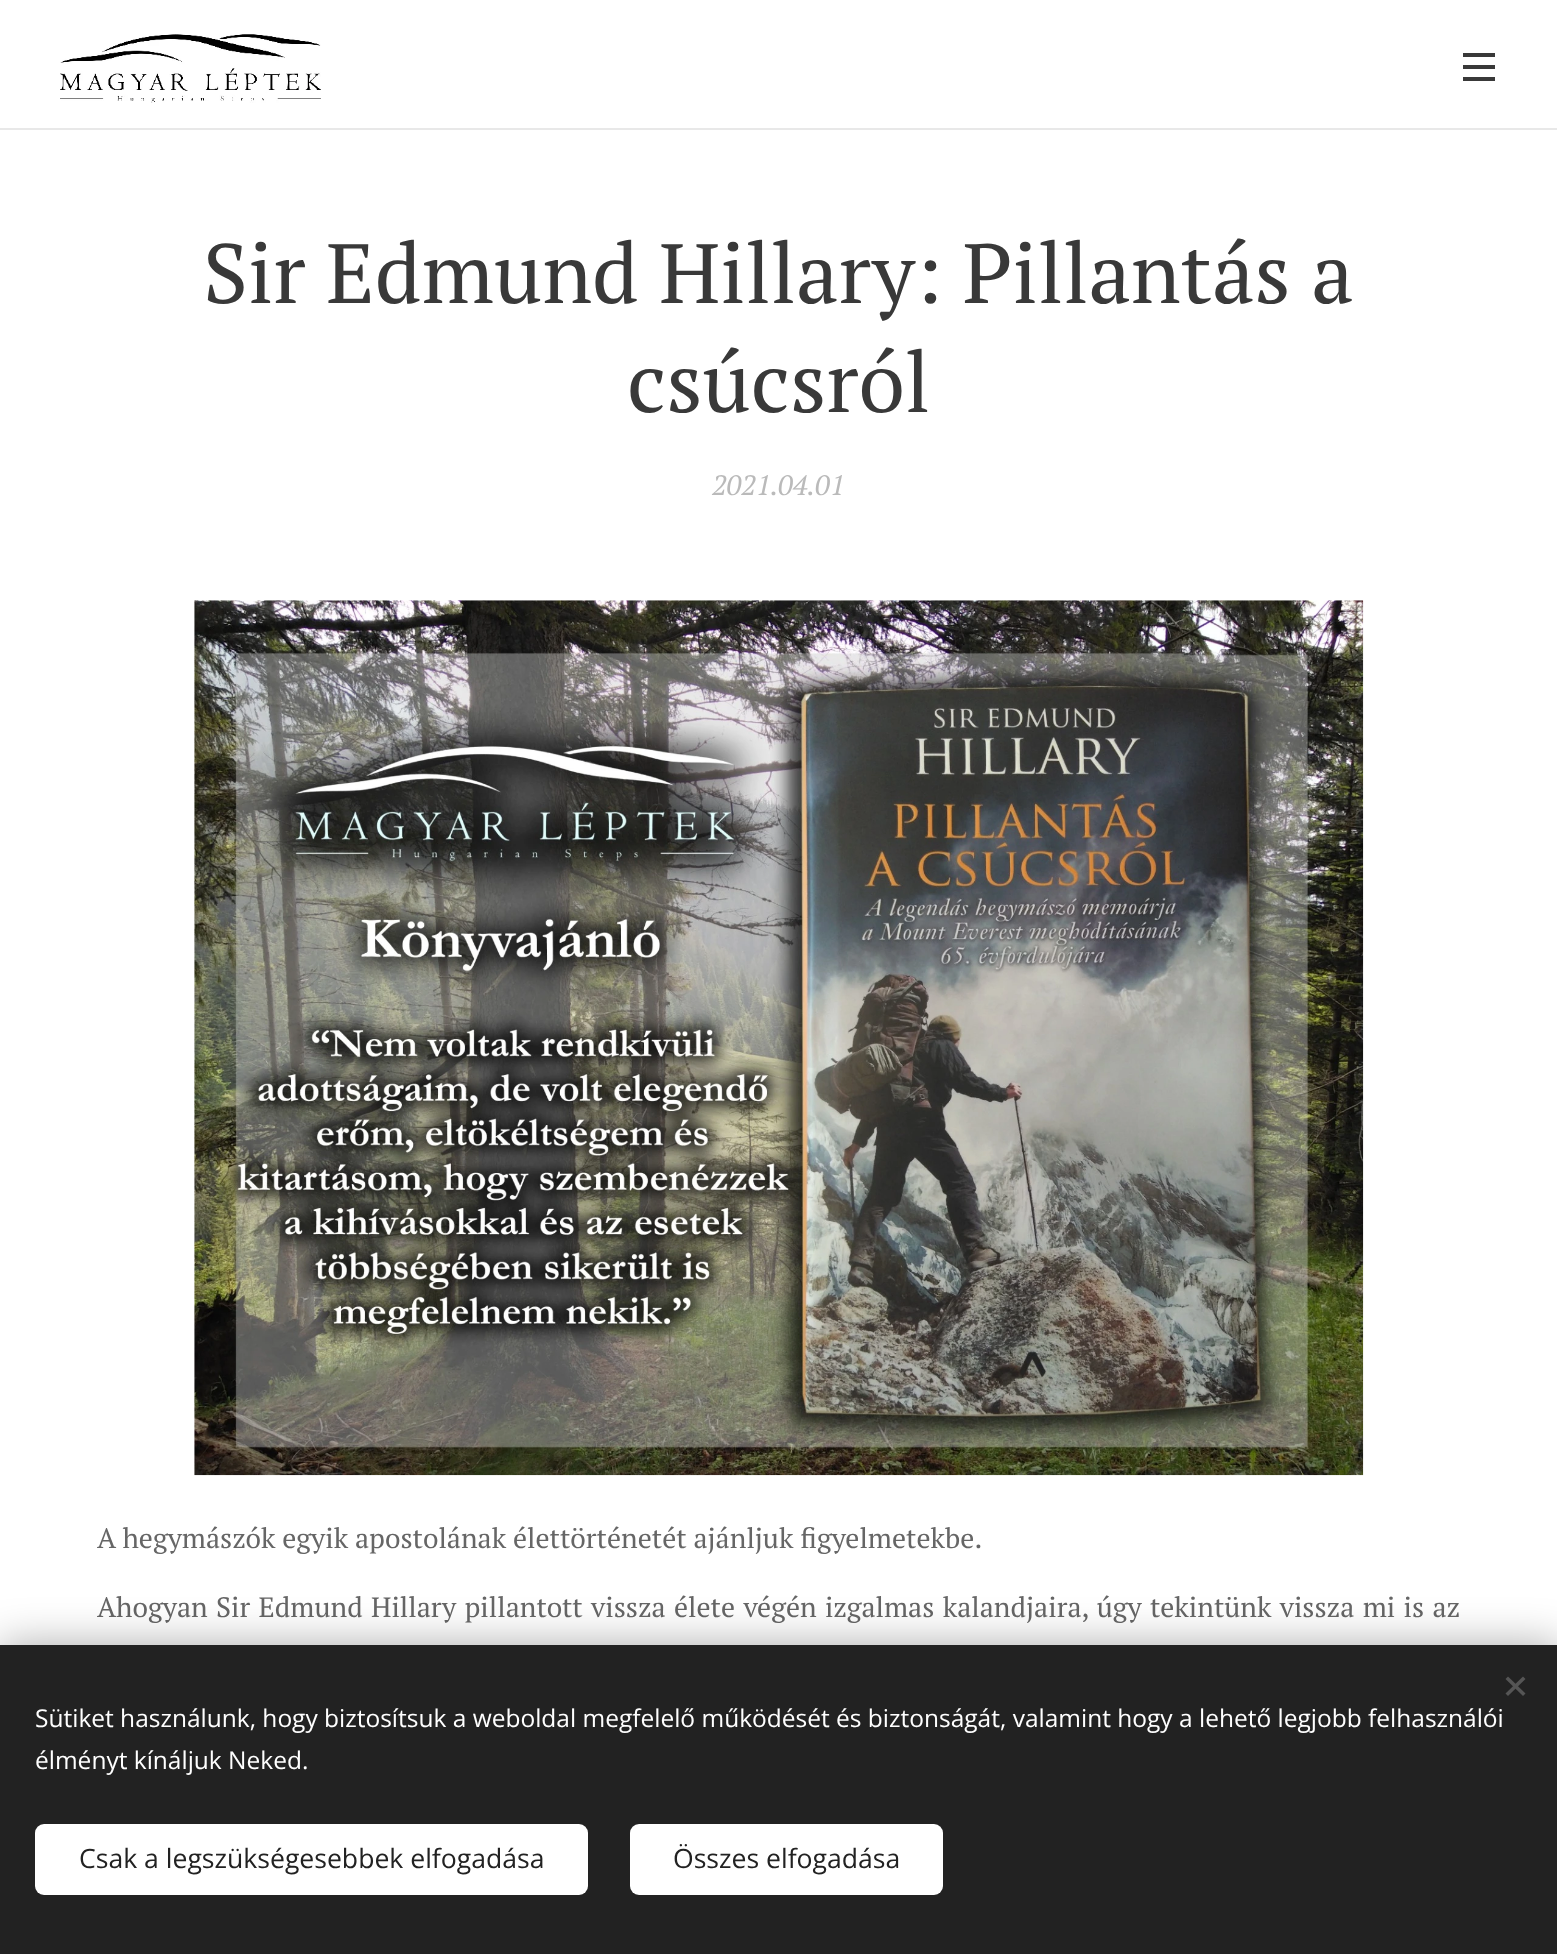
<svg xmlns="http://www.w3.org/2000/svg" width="1557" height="1954">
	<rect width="100%" height="100%" fill="#FFFFFF" />
	<image x="60" y="34" width="261" height="69" href="assets/img1.png" />
	<rect x="1463" y="65" width="32" height="4" fill="#393939" />
	<rect x="1463" y="53" width="32" height="4" fill="#393939" />
	<rect x="1463" y="77" width="32" height="4" fill="#393939" />
	<rect x="0" y="128" width="1557" height="2" fill="#E8E8E8" />
	<g font-family="PT Serif" font-size="84" fill="#393939">
		<text x="203" y="303">Sir Edmund Hillary: Pillantás a</text>
		<text x="627" y="412">csúcsról</text>
	</g>
	<text x="712" y="495" font-family="PT Serif" font-size="28" font-style="italic" fill="#BABABA">2021.04.01</text>
	<image x="194" y="600" width="1170" height="876" href="assets/img2.png" />
	<g font-family="PT Serif" font-size="28" fill="#666666">
		<text x="97" y="1548">A hegymászók egyik apostolának élettörténetét ajánljuk figyelmetekbe.</text>
		<text x="97" y="1617" word-spacing="1.5">Ahogyan Sir Edmund Hillary pillantott vissza élete végén izgalmas kalandjaira, úgy tekintünk vissza mi is az</text>
	</g>
	<rect x="0" y="1645" width="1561" height="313" fill="#000000" fill-opacity="0.33" filter="blur(22px)" />
	<rect x="0" y="1645" width="1557" height="309" fill="#222222" />
	<path d="M1505.5 1693.5L1523 1676.5L1525.5 1679L1508 1696Z" fill="#555555" />
	<path d="M1508 1676.5L1525.5 1693.5L1523 1696L1505.5 1679Z" fill="#555555" />
	<g font-family="Open Sans" font-size="24.5" fill="#FFFFFF">
		<text x="35" y="1727">Sütiket használunk, hogy biztosítsuk a weboldal megfelelő működését és biztonságát, valamint hogy a lehető legjobb felhasználói</text>
		<text x="35" y="1769">élményt kínáljuk Neked.</text>
	</g>
	<rect x="35" y="1824" width="553" height="71" rx="9" fill="#FFFFFF" />
	<text x="79" y="1868" font-family="Open Sans" font-size="26.6" fill="#222222">Csak a legszükségesebbek elfogadása</text>
	<rect x="630" y="1824" width="313" height="71" rx="9" fill="#FFFFFF" />
	<text x="673" y="1868" font-family="Open Sans" font-size="26.6" fill="#222222">Összes elfogadása</text>
</svg>
